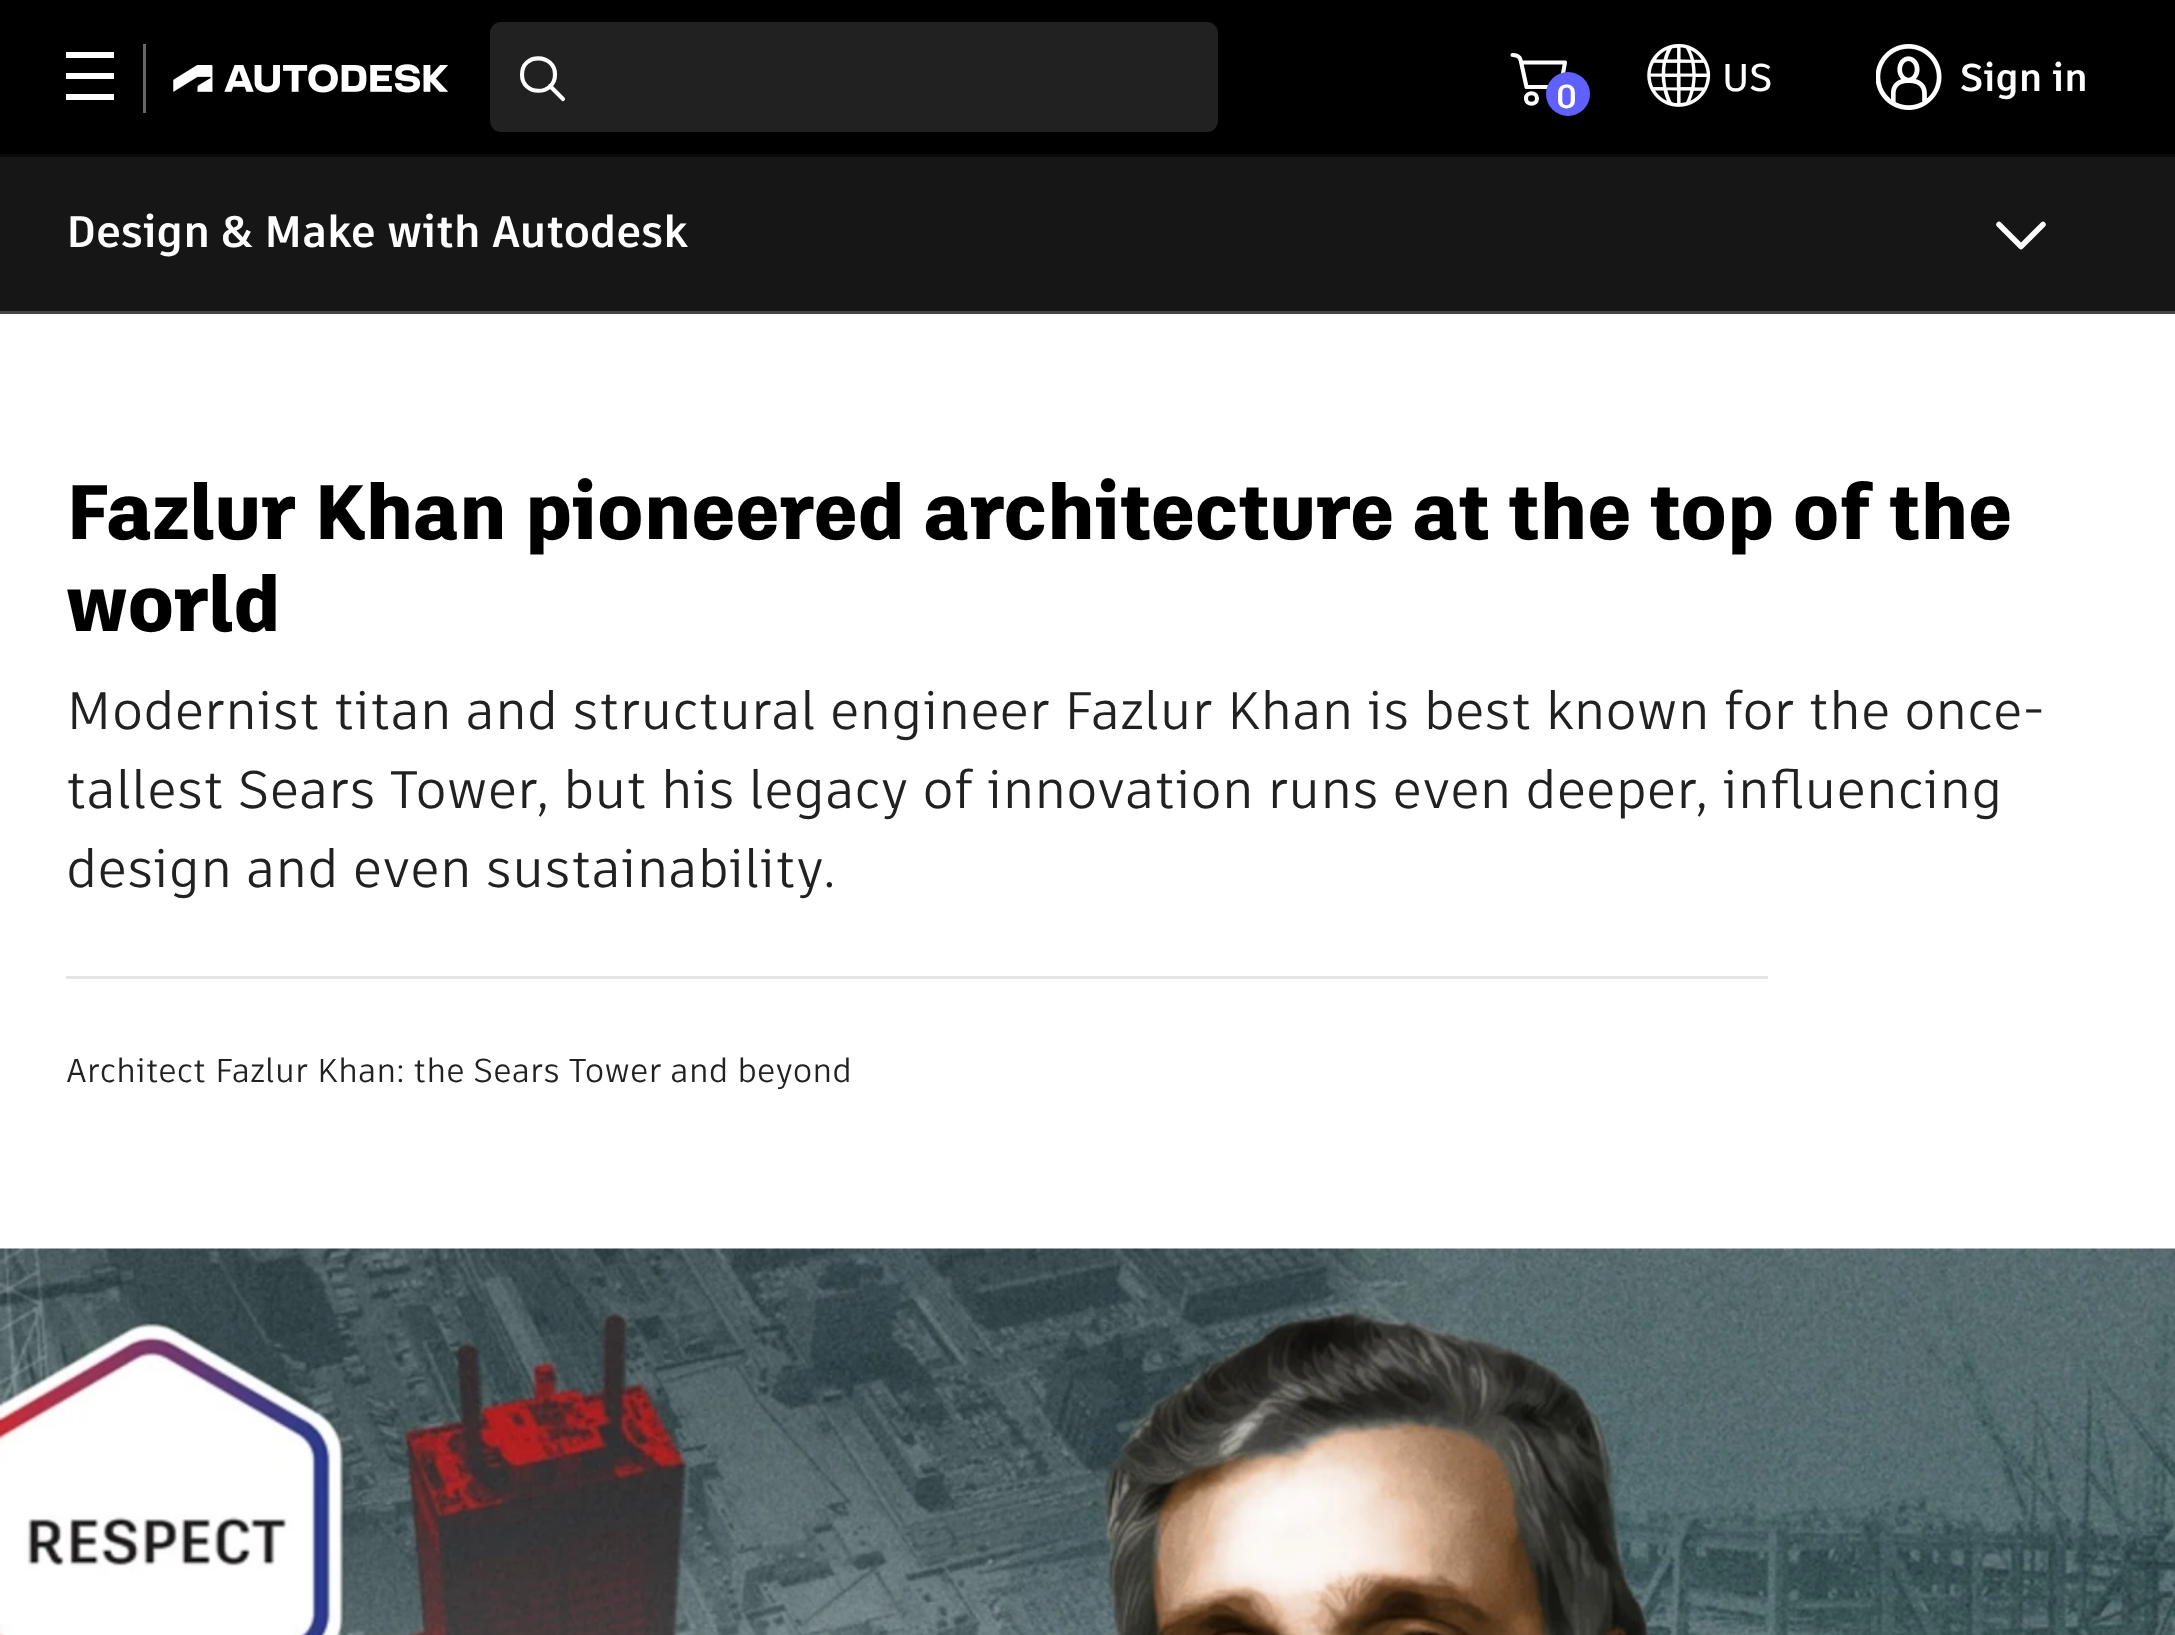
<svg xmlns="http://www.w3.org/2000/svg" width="2175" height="1635">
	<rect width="100%" height="100%" fill="#FFFFFF" />
	<rect x="0" y="0" width="2175" height="154" fill="#000000" />
	<rect x="0" y="154" width="2175" height="3" fill="#0A0A0A" />
	<path d="M66 52H114V58H66ZM66 73H114V79H66ZM66 94H114V100H66Z" fill="#FFFFFF" />
	<rect x="143" y="44" width="3" height="69" fill="#666666" />
	<image x="173" y="64" width="275" height="29" href="assets/img1.png" />
	<rect x="490" y="22" width="728" height="110" rx="11" fill="#212121" />
	<path d="M550 86L563 99M555 74.5C555 96 522 96.5 522 74.5C522 52.5 555 53.5 555 74.5Z" fill="none" stroke="#FFFFFF" stroke-width="4.1" stroke-linecap="round" />
	<image x="1647" y="44" width="64" height="63" href="assets/img2.png" />
	<text x="1722" y="91" font-family="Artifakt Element" font-size="38.5" font-weight="600" fill="#FFFFFF">US</text>
	<path d="M1512.5 55C1521.5 55 1520.5 60.5 1522.5 68.5L1526.5 87H1560.5L1565 62.5H1521M1537 98.5C1537 105.5 1526 105.5 1526 98.5C1526 91.5 1537 91.5 1537 98.5ZM1562 98.5C1562 105.5 1551 105.5 1551 98.5C1551 91.5 1562 91.5 1562 98.5Z" fill="none" stroke="#FFFFFF" stroke-width="4.1" stroke-linecap="round" stroke-linejoin="round" />
	<circle cx="1568" cy="94" r="22" fill="#5F60FF" />
	<text x="1556" y="108" font-family="Artifakt Element" font-size="33" font-weight="700" fill="#FFFFFF">0</text>
	<image x="1876" y="44" width="66" height="66" href="assets/img3.png" />
	<text x="1960" y="91" font-family="Artifakt Element" font-size="38.5" font-weight="700" fill="#FFFFFF">Sign in</text>
	<rect x="0" y="157" width="2175" height="154" fill="#161616" />
	<rect x="0" y="311" width="2175" height="3" fill="#454545" />
	<text x="66" y="247" font-family="Artifakt Element" font-size="44" font-weight="700" fill="#FFFFFF">Design &amp; Make with Autodesk</text>
	<path d="M2043 224.5L2021 246.5L1999 224.5" fill="none" stroke="#FFFFFF" stroke-width="5.5" stroke-linecap="round" stroke-linejoin="round" />
	<g font-family="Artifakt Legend" font-size="76.9" font-weight="800" fill="#000000">
		<text x="66" y="539">Fazlur Khan pioneered architecture at the top of the</text>
		<text x="66" y="631">world</text>
	</g>
	<g font-family="Artifakt Element" font-size="52.7" fill="#212121">
		<text x="66" y="729" word-spacing="-0.1">Modernist titan and structural engineer Fazlur Khan is best known for the once-</text>
		<text x="66" y="808" word-spacing="-0.25">tallest Sears Tower, but his legacy of innovation runs even deeper, influencing</text>
		<text x="66" y="887">design and even sustainability.</text>
	</g>
	<rect x="66" y="976" width="1702" height="3" fill="#E5E5E5" />
	<text x="66" y="1082" font-family="Artifakt Element" font-size="33" fill="#212121">Architect Fazlur Khan: the Sears Tower and beyond</text>
	<image x="0" y="1248" width="2175" height="387" href="assets/img4.png" />
</svg>
